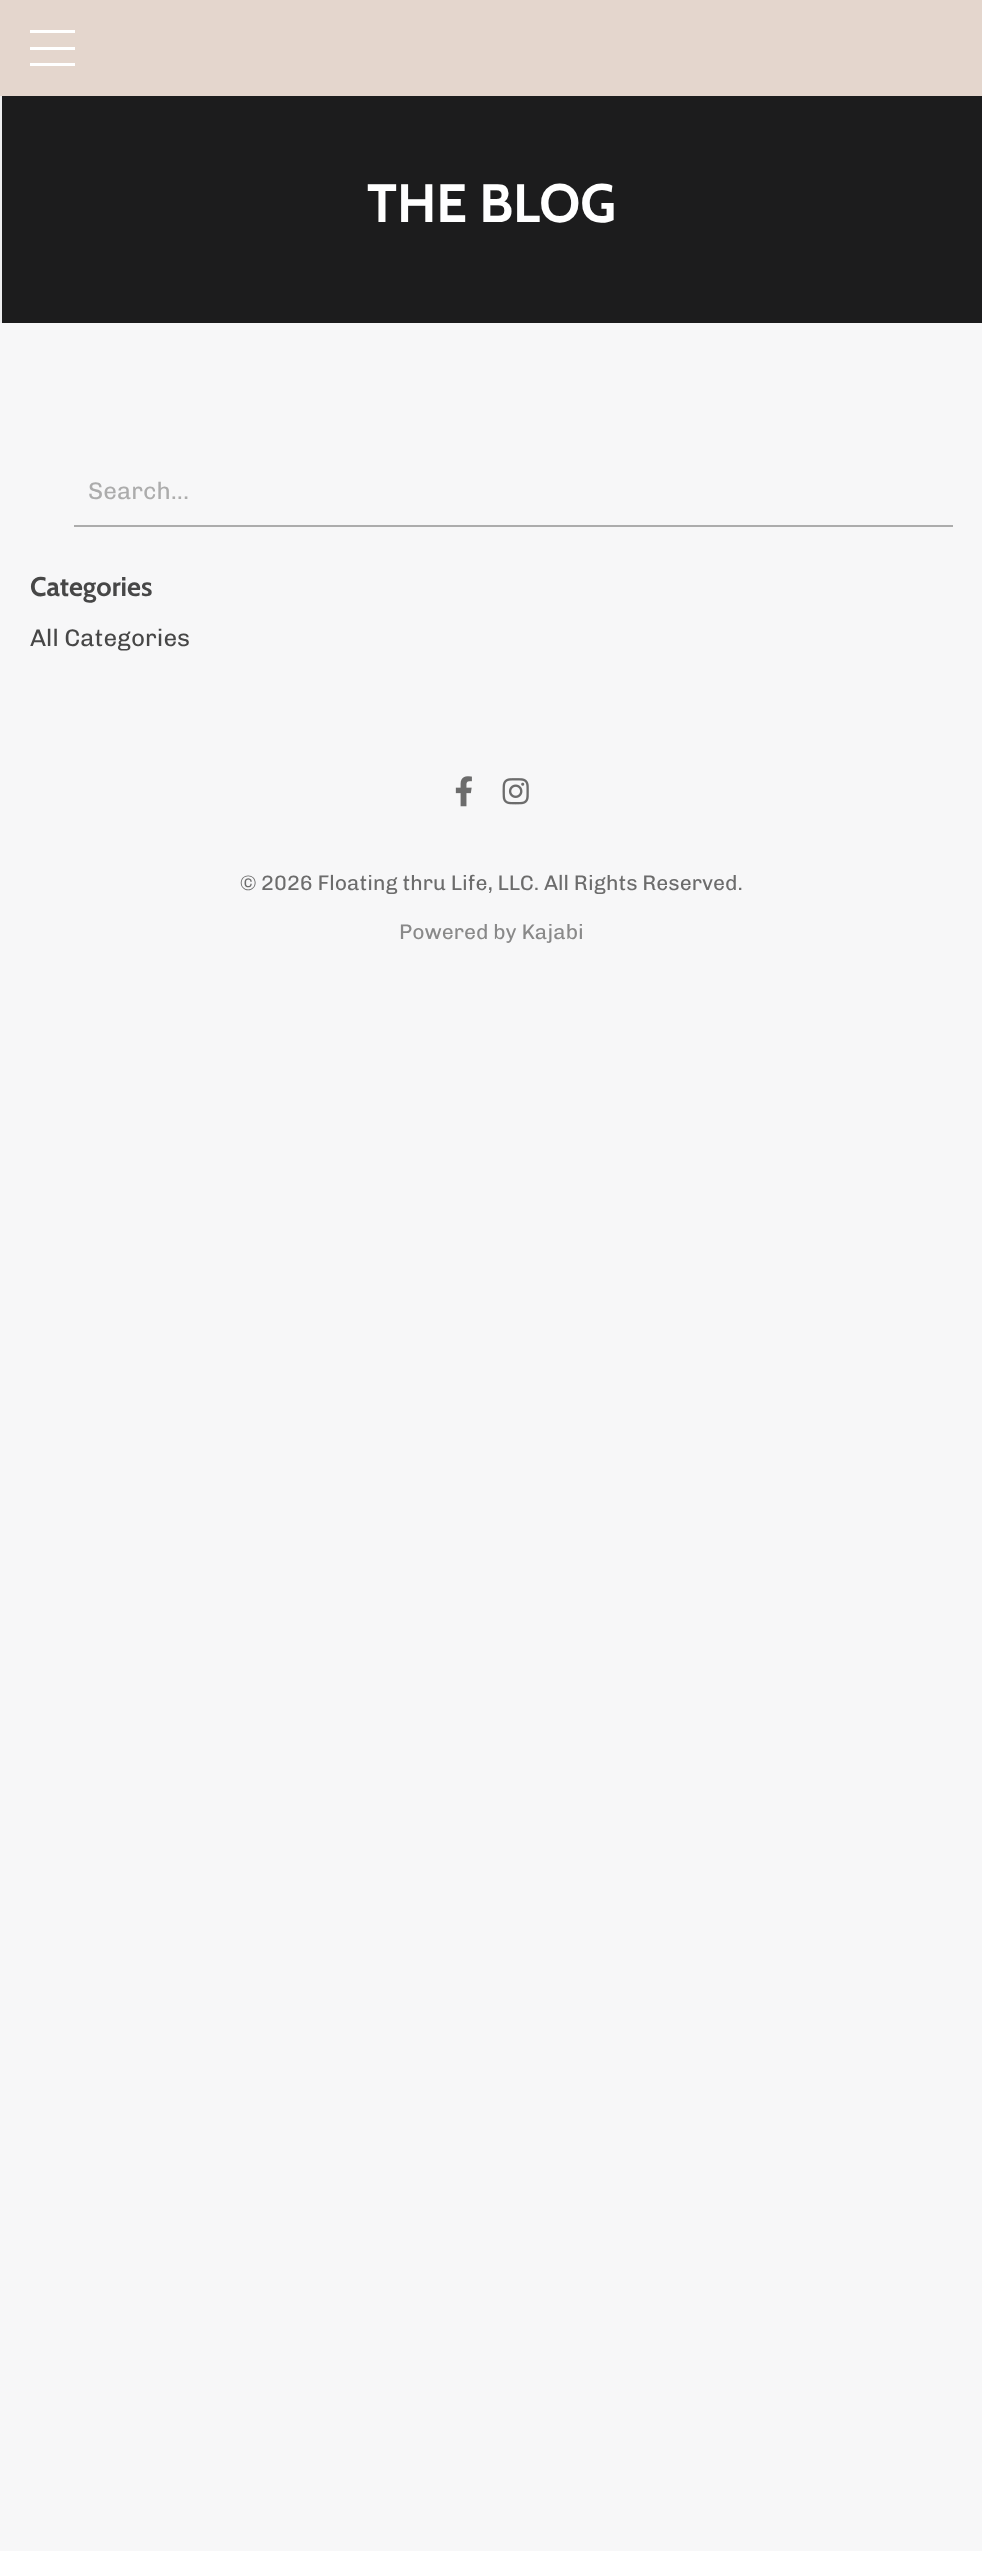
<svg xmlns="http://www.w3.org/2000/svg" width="982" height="2551">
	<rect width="100%" height="100%" fill="#F7F7F8" />
	<rect x="0" y="96" width="2" height="227" fill="#EEEEEF" />
	<rect x="0" y="0" width="982" height="96" fill="#E4D6CD" />
	<rect x="30" y="30" width="45" height="3" fill="#FFFFFF" />
	<rect x="30" y="47" width="45" height="3" fill="#FFFFFF" />
	<rect x="30" y="63" width="45" height="3" fill="#FFFFFF" />
	<rect x="2" y="96" width="980" height="227" fill="#1C1C1D" />
	<text x="367" y="222" font-family="Cabin" font-size="54" font-weight="700" fill="#FFFFFF">THE BLOG</text>
	<rect x="74" y="525" width="879" height="2" fill="#ACACAC" />
	<text x="88" y="499" font-family="Chivo" font-size="24" fill="#ACACAC">Search...</text>
	<text x="30" y="596" font-family="Cabin" font-size="27" font-weight="700" fill="#474747">Categories</text>
	<text x="30" y="646" font-family="Chivo" font-size="24" fill="#474747">All Categories</text>
	<image x="455" y="776" width="17" height="31" href="assets/img1.png" />
	<image x="502" y="778" width="27" height="27" href="assets/img2.png" />
	<text x="240" y="890" font-family="Chivo" font-size="21" fill="#6C6C6C">© 2026 Floating thru Life, LLC. All Rights Reserved.</text>
	<text x="399" y="939" font-family="Chivo" font-size="21" fill="#898989">Powered by Kajabi</text>
</svg>
